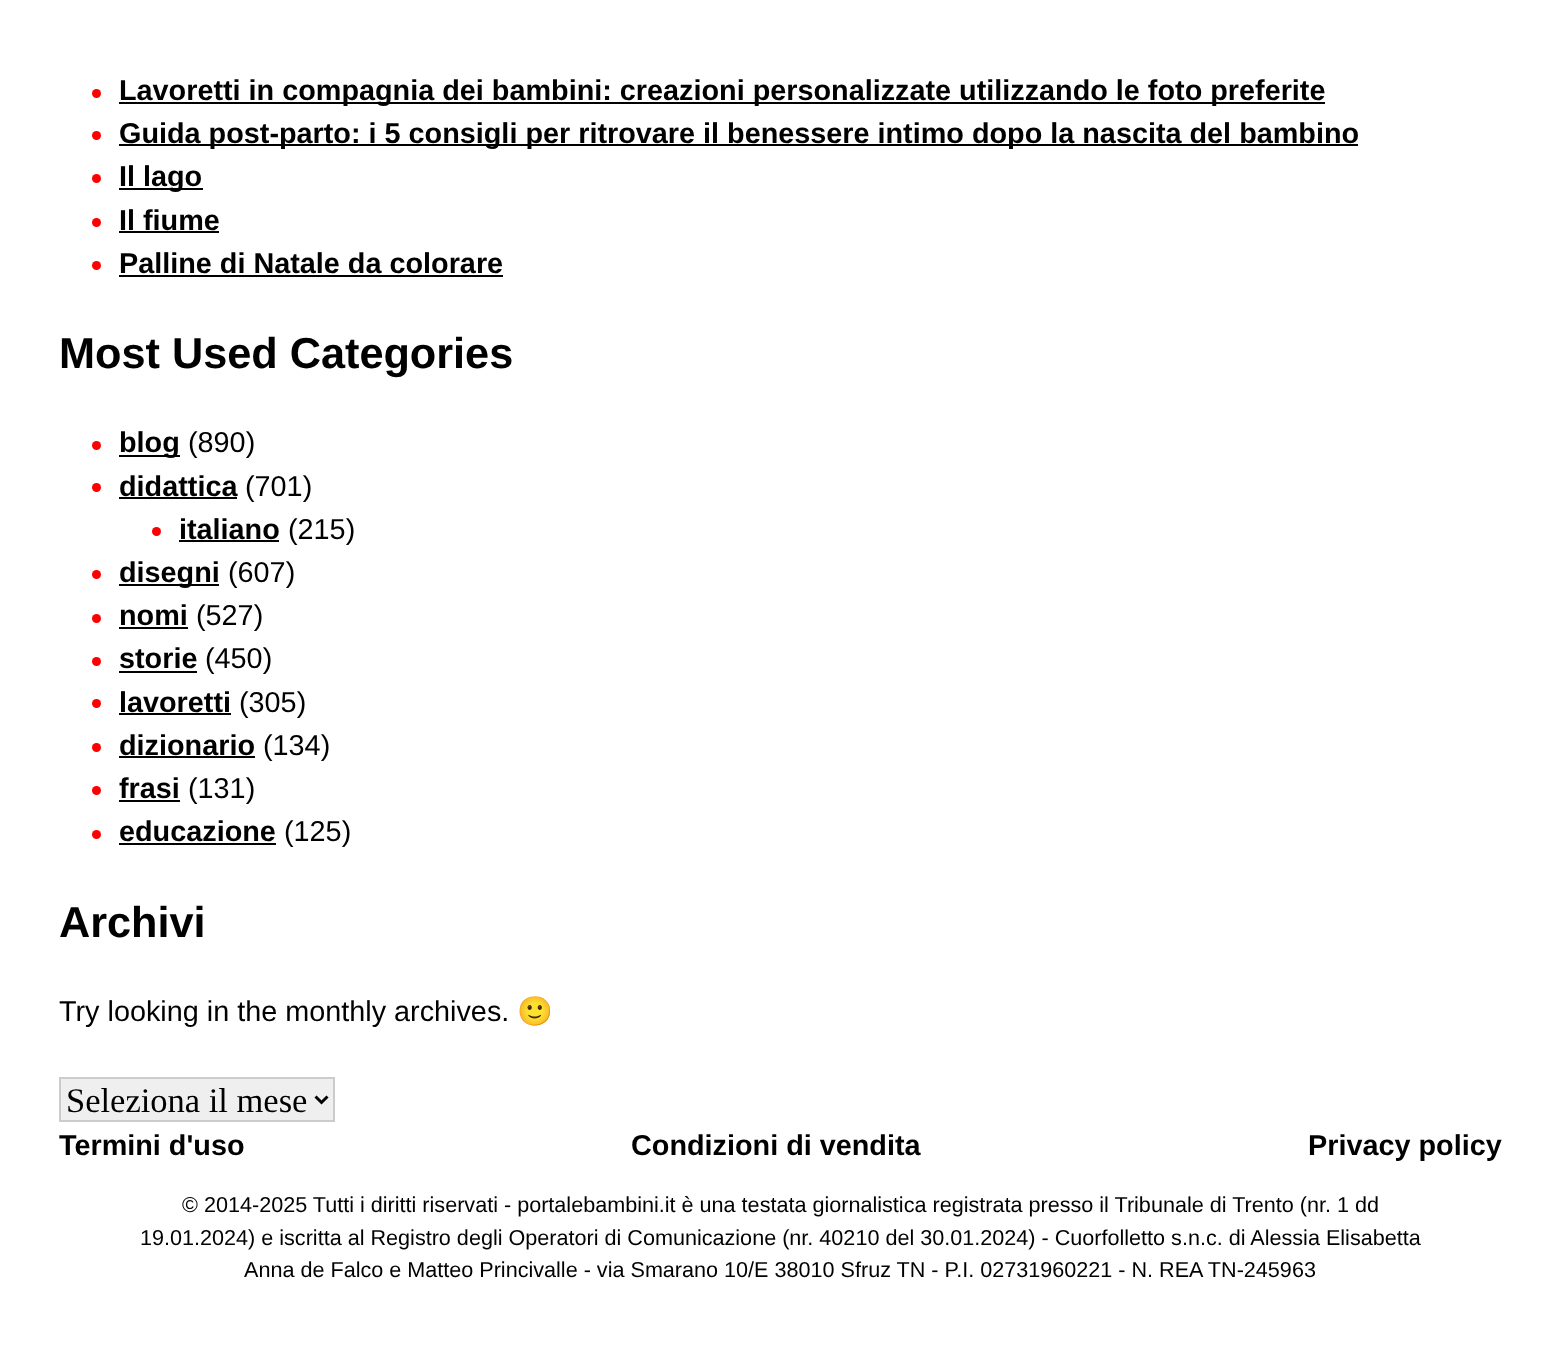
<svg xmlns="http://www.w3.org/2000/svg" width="1559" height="1356">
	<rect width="100%" height="100%" fill="#FFFFFF" />
	<circle cx="96.5" cy="93.5" r="4.5" fill="#FF0000" />
	<rect x="119" y="102" width="1206" height="2" fill="#000000" />
	<text x="119" y="100" font-family="Liberation Sans" font-size="28.8" font-weight="700" fill="#000000">Lavoretti in compagnia dei bambini: creazioni personalizzate utilizzando le foto preferite</text>
	<circle cx="96.5" cy="135.5" r="4.5" fill="#FF0000" />
	<rect x="119" y="144" width="1239" height="2" fill="#000000" />
	<text x="119" y="143" font-family="Liberation Sans" font-size="28.8" font-weight="700" fill="#000000">Guida post-parto: i 5 consigli per ritrovare il benessere intimo dopo la nascita del bambino</text>
	<circle cx="96.5" cy="178.5" r="4.5" fill="#FF0000" />
	<rect x="119" y="188" width="84" height="2" fill="#000000" />
	<text x="119" y="186" font-family="Liberation Sans" font-size="28.8" font-weight="700" fill="#000000">Il lago</text>
	<circle cx="96.5" cy="222.5" r="4.5" fill="#FF0000" />
	<text x="119" y="230" font-family="Liberation Sans" font-size="28.8" font-weight="700" fill="#000000">Il fiume</text>
	<rect x="119" y="231" width="100" height="2" fill="#000000" />
	<circle cx="96.5" cy="265.5" r="4.5" fill="#FF0000" />
	<text x="119" y="273" font-family="Liberation Sans" font-size="28.8" font-weight="700" fill="#000000">Palline di Natale da colorare</text>
	<rect x="119" y="275" width="384" height="2" fill="#000000" />
	<text x="59" y="368" font-family="Liberation Sans" font-size="43.25" font-weight="700" fill="#000000">Most Used Categories</text>
	<circle cx="96.5" cy="445.5" r="4.5" fill="#FF0000" />
	<rect x="119" y="455" width="61" height="2" fill="#000000" />
	<text x="119" y="452" font-family="Liberation Sans" font-size="28.8" font-weight="700" fill="#000000">blog</text>
	<text x="188" y="452" font-family="Liberation Sans" font-size="28.8" fill="#000000">(890)</text>
	<circle cx="96.5" cy="487.5" r="4.5" fill="#FF0000" />
	<text x="119" y="496" font-family="Liberation Sans" font-size="28.8" font-weight="700" fill="#000000">didattica</text>
	<rect x="119" y="497" width="118" height="2" fill="#000000" />
	<text x="245" y="496" font-family="Liberation Sans" font-size="28.8" fill="#000000">(701)</text>
	<circle cx="156.5" cy="531.5" r="4.5" fill="#FF0000" />
	<text x="179" y="539" font-family="Liberation Sans" font-size="28.8" font-weight="700" fill="#000000">italiano</text>
	<rect x="179" y="540" width="100" height="2" fill="#000000" />
	<text x="288" y="539" font-family="Liberation Sans" font-size="28.8" fill="#000000">(215)</text>
	<circle cx="96.5" cy="574.5" r="4.5" fill="#FF0000" />
	<rect x="119" y="584" width="100" height="2" fill="#000000" />
	<text x="119" y="582" font-family="Liberation Sans" font-size="28.8" font-weight="700" fill="#000000">disegni</text>
	<text x="228" y="582" font-family="Liberation Sans" font-size="28.8" fill="#000000">(607)</text>
	<circle cx="96.5" cy="618.5" r="4.5" fill="#FF0000" />
	<text x="119" y="625" font-family="Liberation Sans" font-size="28.8" font-weight="700" fill="#000000">nomi</text>
	<rect x="119" y="627" width="69" height="2" fill="#000000" />
	<text x="196" y="625" font-family="Liberation Sans" font-size="28.8" fill="#000000">(527)</text>
	<circle cx="96.5" cy="661.5" r="4.5" fill="#FF0000" />
	<text x="119" y="668" font-family="Liberation Sans" font-size="28.8" font-weight="700" fill="#000000">storie</text>
	<rect x="119" y="671" width="78" height="2" fill="#000000" />
	<text x="205" y="668" font-family="Liberation Sans" font-size="28.8" fill="#000000">(450)</text>
	<circle cx="96.5" cy="703.5" r="4.5" fill="#FF0000" />
	<text x="119" y="712" font-family="Liberation Sans" font-size="28.8" font-weight="700" fill="#000000">lavoretti</text>
	<rect x="119" y="713" width="112" height="2" fill="#000000" />
	<text x="239" y="712" font-family="Liberation Sans" font-size="28.8" fill="#000000">(305)</text>
	<circle cx="96.5" cy="747.5" r="4.5" fill="#FF0000" />
	<text x="119" y="755" font-family="Liberation Sans" font-size="28.8" font-weight="700" fill="#000000">dizionario</text>
	<rect x="119" y="756" width="136" height="2" fill="#000000" />
	<text x="263" y="755" font-family="Liberation Sans" font-size="28.8" fill="#000000">(134)</text>
	<circle cx="96.5" cy="790.5" r="4.5" fill="#FF0000" />
	<text x="119" y="798" font-family="Liberation Sans" font-size="28.8" font-weight="700" fill="#000000">frasi</text>
	<rect x="119" y="800" width="61" height="2" fill="#000000" />
	<text x="188" y="798" font-family="Liberation Sans" font-size="28.8" fill="#000000">(131)</text>
	<circle cx="96.5" cy="834.5" r="4.5" fill="#FF0000" />
	<text x="119" y="841" font-family="Liberation Sans" font-size="28.8" font-weight="700" fill="#000000">educazione</text>
	<rect x="119" y="843" width="157" height="2" fill="#000000" />
	<text x="284" y="841" font-family="Liberation Sans" font-size="28.8" fill="#000000">(125)</text>
	<text x="59" y="937" font-family="Liberation Sans" font-size="43.25" font-weight="700" fill="#000000">Archivi</text>
	<text x="59" y="1021" font-family="Liberation Sans" font-size="28.8" fill="#000000">Try looking in the monthly archives.</text>
	<text x="517" y="1021" font-family="Noto Color Emoji" font-size="28.8" fill="#000000">🙂</text>
	<rect x="60" y="1078" width="274" height="43" fill="#EFEFEF" stroke="#CCCCCC" stroke-width="2" />
	<path d="M315.5 1096.5L321.5 1102.5L327.5 1096.5" fill="none" stroke="#040402" stroke-width="3" />
	<text x="66" y="1112" font-family="Liberation Serif" font-size="34.5" fill="#000000">Seleziona il mese</text>
	<g font-family="Liberation Sans" font-size="28.8" font-weight="700" fill="#000000">
		<text x="59" y="1155">Termini d'uso</text>
		<text x="631" y="1155">Condizioni di vendita</text>
		<text x="1308" y="1155">Privacy policy</text>
	</g>
	<g font-family="Liberation Sans" font-size="21.6" fill="#000000">
		<text x="182" y="1212">© 2014-2025 Tutti i diritti riservati - portalebambini.it è una testata giornalistica registrata presso il Tribunale di Trento (nr. 1 dd</text>
		<text x="140" y="1245">19.01.2024) e iscritta al Registro degli Operatori di Comunicazione (nr. 40210 del 30.01.2024) - Cuorfolletto s.n.c. di Alessia Elisabetta</text>
		<text x="244" y="1277">Anna de Falco e Matteo Princivalle - via Smarano 10/E 38010 Sfruz TN - P.I. 02731960221 - N. REA TN-245963</text>
	</g>
</svg>
